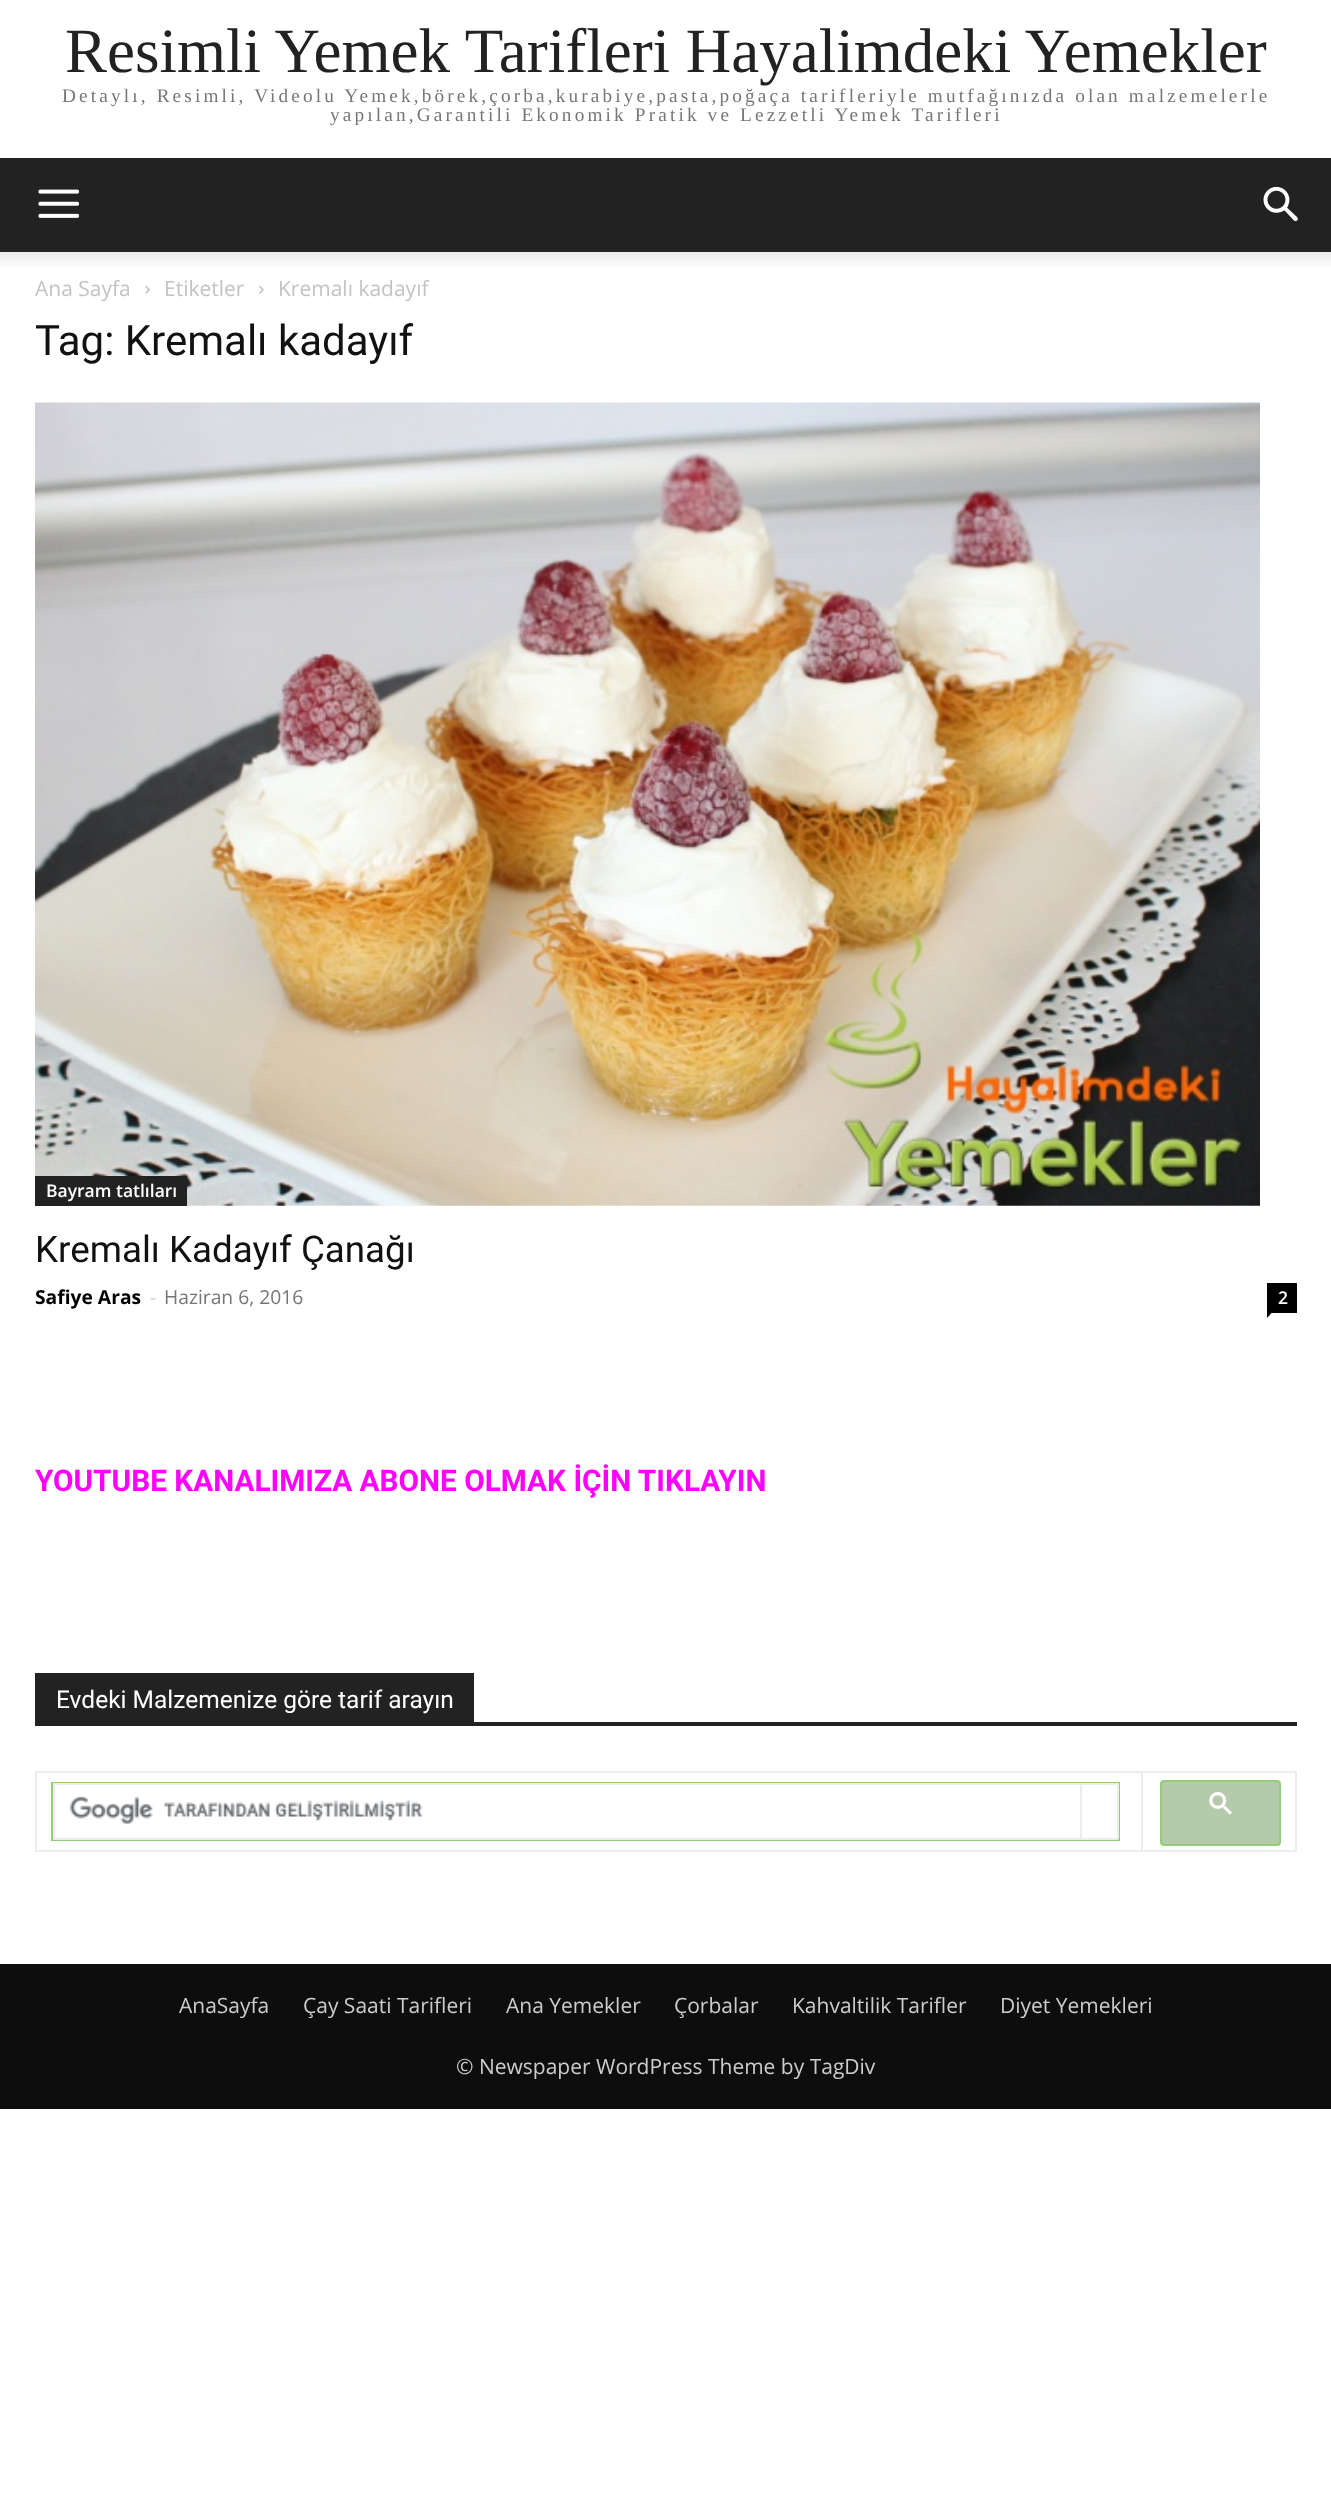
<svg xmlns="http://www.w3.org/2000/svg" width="1331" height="2508">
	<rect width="100%" height="100%" fill="#FFFFFF" />
	<text x="65" y="72" font-family="Liberation Serif" font-size="63" fill="#222222">Resimli Yemek Tarifleri Hayalimdeki Yemekler</text>
	<g font-family="Liberation Serif" font-size="19.25" letter-spacing="3.15" fill="#767676">
		<text x="62" y="102">Detaylı, Resimli, Videolu Yemek,börek,çorba,kurabiye,pasta,poğaça tarifleriyle mutfağınızda olan malzemelerle</text>
		<text x="330" y="121">yapılan,Garantili Ekonomik Pratik ve Lezzetli Yemek Tarifleri</text>
	</g>
	<rect x="0" y="158" width="1331" height="94" fill="#222222" />
	<image x="38" y="189" width="41" height="29" href="assets/img1.png" />
	<image x="1263" y="186" width="35" height="36" href="assets/img2.png" />
	<image x="0" y="252" width="1331" height="15" href="assets/img3.png" />
	<text x="35" y="296" font-family="Open Sans" font-size="21" fill="#C3C3C3">Ana Sayfa</text>
	<image x="145" y="285" width="5" height="9" href="assets/img4.png" />
	<text x="164" y="296" font-family="Open Sans" font-size="21" fill="#C3C3C3">Etiketler</text>
	<image x="259" y="285" width="5" height="9" href="assets/img5.png" />
	<text x="278" y="296" font-family="Open Sans" font-size="21" fill="#C3C3C3">Kremalı kadayıf</text>
	<text x="35" y="355" font-family="Roboto" font-size="42" fill="#111111">Tag: Kremalı kadayıf</text>
	<image x="35" y="402" width="1225" height="804" href="assets/img6.png" />
	<rect x="35" y="1176" width="152" height="30" fill="#222222" />
	<text x="46" y="1197" font-family="Open Sans" font-size="17.5" font-weight="600" fill="#FFFFFF">Bayram tatlıları</text>
	<text x="35" y="1262" font-family="Roboto" font-size="36.75" fill="#111111">Kremalı Kadayıf Çanağı</text>
	<text x="35" y="1304" font-family="Open Sans" font-size="19.25" font-weight="700" fill="#000000">Safiye Aras</text>
	<text x="150" y="1304" font-family="Open Sans" font-size="19.25" fill="#CCCCCC">-</text>
	<text x="164" y="1304" font-family="Open Sans" font-size="19.25" fill="#767676">Haziran 6, 2016</text>
	<rect x="1267" y="1283" width="30" height="30" fill="#000000" />
	<text x="1278" y="1304" font-family="Open Sans" font-size="17.5" font-weight="600" fill="#FFFFFF">2</text>
	<path d="M1267 1312.5H1272L1267 1318Z" fill="#000000" />
	<text x="35" y="1491" font-family="Roboto" font-size="29.75" font-weight="700" fill="#FF00FF">YOUTUBE KANALIMIZA ABONE OLMAK İÇİN TIKLAYIN</text>
	<rect x="35" y="1722" width="1262" height="4" fill="#222222" />
	<rect x="35" y="1673" width="439" height="49" fill="#222222" />
	<text x="56" y="1708" font-family="Roboto" font-size="24.5" fill="#FFFFFF">Evdeki Malzemenize göre tarif arayın</text>
	<rect x="1141" y="1771" width="156" height="2" fill="#EDEDED" />
	<rect x="1295" y="1771" width="2" height="81" fill="#EDEDED" />
	<rect x="1141" y="1850" width="156" height="2" fill="#EDEDED" />
	<rect x="1141" y="1771" width="2" height="81" fill="#EDEDED" />
	<rect x="35" y="1771" width="1108" height="2" fill="#EDEDED" />
	<rect x="35" y="1850" width="1108" height="2" fill="#EDEDED" />
	<rect x="35" y="1771" width="2" height="81" fill="#EDEDED" />
	<rect x="52" y="1783" width="1067" height="57" fill="none" stroke="#94CC7A" stroke-width="2" />
	<rect x="1080" y="1783" width="38" height="2" fill="#EDEDED" />
	<rect x="1117" y="1783" width="2" height="56" fill="#EDEDED" />
	<rect x="1080" y="1838" width="38" height="2" fill="#EDEDED" />
	<rect x="1080" y="1783" width="2" height="56" fill="#EDEDED" />
	<rect x="53" y="1783" width="1029" height="2" fill="#EDEDED" />
	<rect x="53" y="1838" width="1029" height="2" fill="#EDEDED" />
	<rect x="53" y="1783" width="2" height="56" fill="#EDEDED" />
	<image x="70" y="1796" width="353" height="28" href="assets/img7.png" />
	<rect x="1161" y="1781" width="119" height="64" rx="3" fill="#B5C9AB" stroke="#94CC7A" stroke-width="2" />
	<image x="1209" y="1792" width="23" height="23" href="assets/img8.png" />
	<rect x="0" y="1964" width="1331" height="145" fill="#0D0D0D" />
	<g font-family="Open Sans" font-size="21" fill="#CCCCCC">
		<text x="179" y="2013">AnaSayfa</text>
		<text x="303" y="2013">Çay Saati Tarifleri</text>
		<text x="506" y="2013">Ana Yemekler</text>
		<text x="674" y="2013">Çorbalar</text>
		<text x="792" y="2013">Kahvaltilik Tarifler</text>
		<text x="1000" y="2013">Diyet Yemekleri</text>
		<text x="456" y="2074">© Newspaper WordPress Theme by TagDiv</text>
	</g>
</svg>
